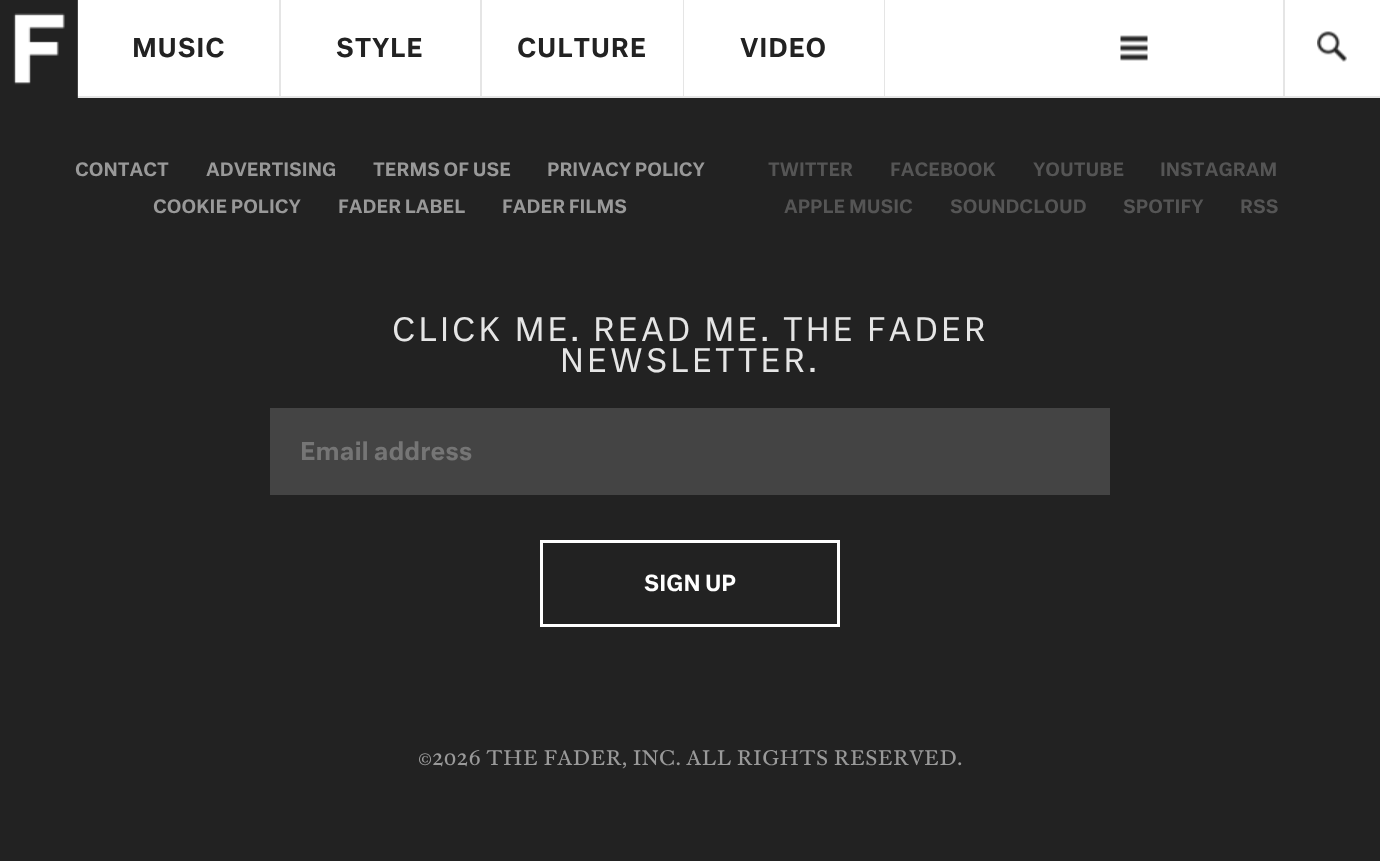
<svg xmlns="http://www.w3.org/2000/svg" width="1380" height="861">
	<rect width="100%" height="100%" fill="#222222" />
	<rect x="13" y="0" width="1367" height="96" fill="#FFFFFF" />
	<rect x="77" y="0" width="1" height="98" fill="#444444" />
	<image x="0" y="0" width="77" height="98" href="assets/img1.png" />
	<rect x="279" y="0" width="2" height="98" fill="#E5E5E5" />
	<rect x="78" y="96" width="203" height="2" fill="#E5E5E5" />
	<text x="132" y="57" font-family="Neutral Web" font-size="25.25" font-weight="500" letter-spacing="0.75" fill="#222222">MUSIC</text>
	<rect x="480" y="0" width="2" height="98" fill="#E5E5E5" />
	<rect x="281" y="96" width="201" height="2" fill="#E5E5E5" />
	<text x="336" y="57" font-family="Neutral Web" font-size="25.25" font-weight="500" letter-spacing="0.75" fill="#222222">STYLE</text>
	<rect x="683" y="0" width="1" height="98" fill="#E5E5E5" />
	<rect x="482" y="96" width="202" height="2" fill="#E5E5E5" />
	<text x="517" y="57" font-family="Neutral Web" font-size="25.25" font-weight="500" letter-spacing="0.75" fill="#222222">CULTURE</text>
	<rect x="884" y="0" width="1" height="98" fill="#E5E5E5" />
	<rect x="684" y="96" width="201" height="2" fill="#E5E5E5" />
	<text x="740" y="57" font-family="Neutral Web" font-size="25.25" font-weight="500" letter-spacing="0.75" fill="#222222">VIDEO</text>
	<rect x="885" y="96" width="495" height="2" fill="#E5E5E5" />
	<image x="1120" y="35" width="28" height="26" href="assets/img2.png" />
	<rect x="1283" y="0" width="2" height="98" fill="#E5E5E5" />
	<image x="1317" y="31" width="30" height="31" href="assets/img3.png" />
	<g font-family="Neutral Web" font-size="18" font-weight="500" fill="#999999">
		<text x="75" y="176">CONTACT</text>
		<text x="206" y="176">ADVERTISING</text>
		<text x="373" y="176">TERMS OF USE</text>
		<text x="547" y="176">PRIVACY POLICY</text>
		<text x="153" y="213">COOKIE POLICY</text>
		<text x="338" y="213">FADER LABEL</text>
		<text x="502" y="213">FADER FILMS</text>
	</g>
	<g font-family="Neutral Web" font-size="18" font-weight="500" fill="#555555">
		<text x="768" y="176">TWITTER</text>
		<text x="890" y="176">FACEBOOK</text>
		<text x="1033" y="176">YOUTUBE</text>
		<text x="1160" y="176">INSTAGRAM</text>
		<text x="784" y="213">APPLE MUSIC</text>
		<text x="950" y="213">SOUNDCLOUD</text>
		<text x="1123" y="213">SPOTIFY</text>
		<text x="1240" y="213">RSS</text>
	</g>
	<g font-family="Neutral Web" font-size="31.5" letter-spacing="3" fill="#E5E5E5">
		<text x="392" y="341">CLICK ME. READ ME. THE FADER</text>
		<text x="560" y="372">NEWSLETTER.</text>
	</g>
	<rect x="270" y="408" width="840" height="87" fill="#444444" />
	<text x="300" y="460" font-family="Neutral Web" font-size="24" font-weight="500" fill="#757575">Email address</text>
	<rect x="541.5" y="541.5" width="297" height="84" fill="none" stroke="#FFFFFF" stroke-width="3" />
	<text x="644" y="591" font-family="Neutral Web" font-size="21.5" font-weight="500" fill="#FFFFFF">SIGN UP</text>
	<text x="418" y="765" font-family="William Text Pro" font-size="21" fill="#999999">©2026 THE FADER, INC. ALL RIGHTS RESERVED.</text>
</svg>
